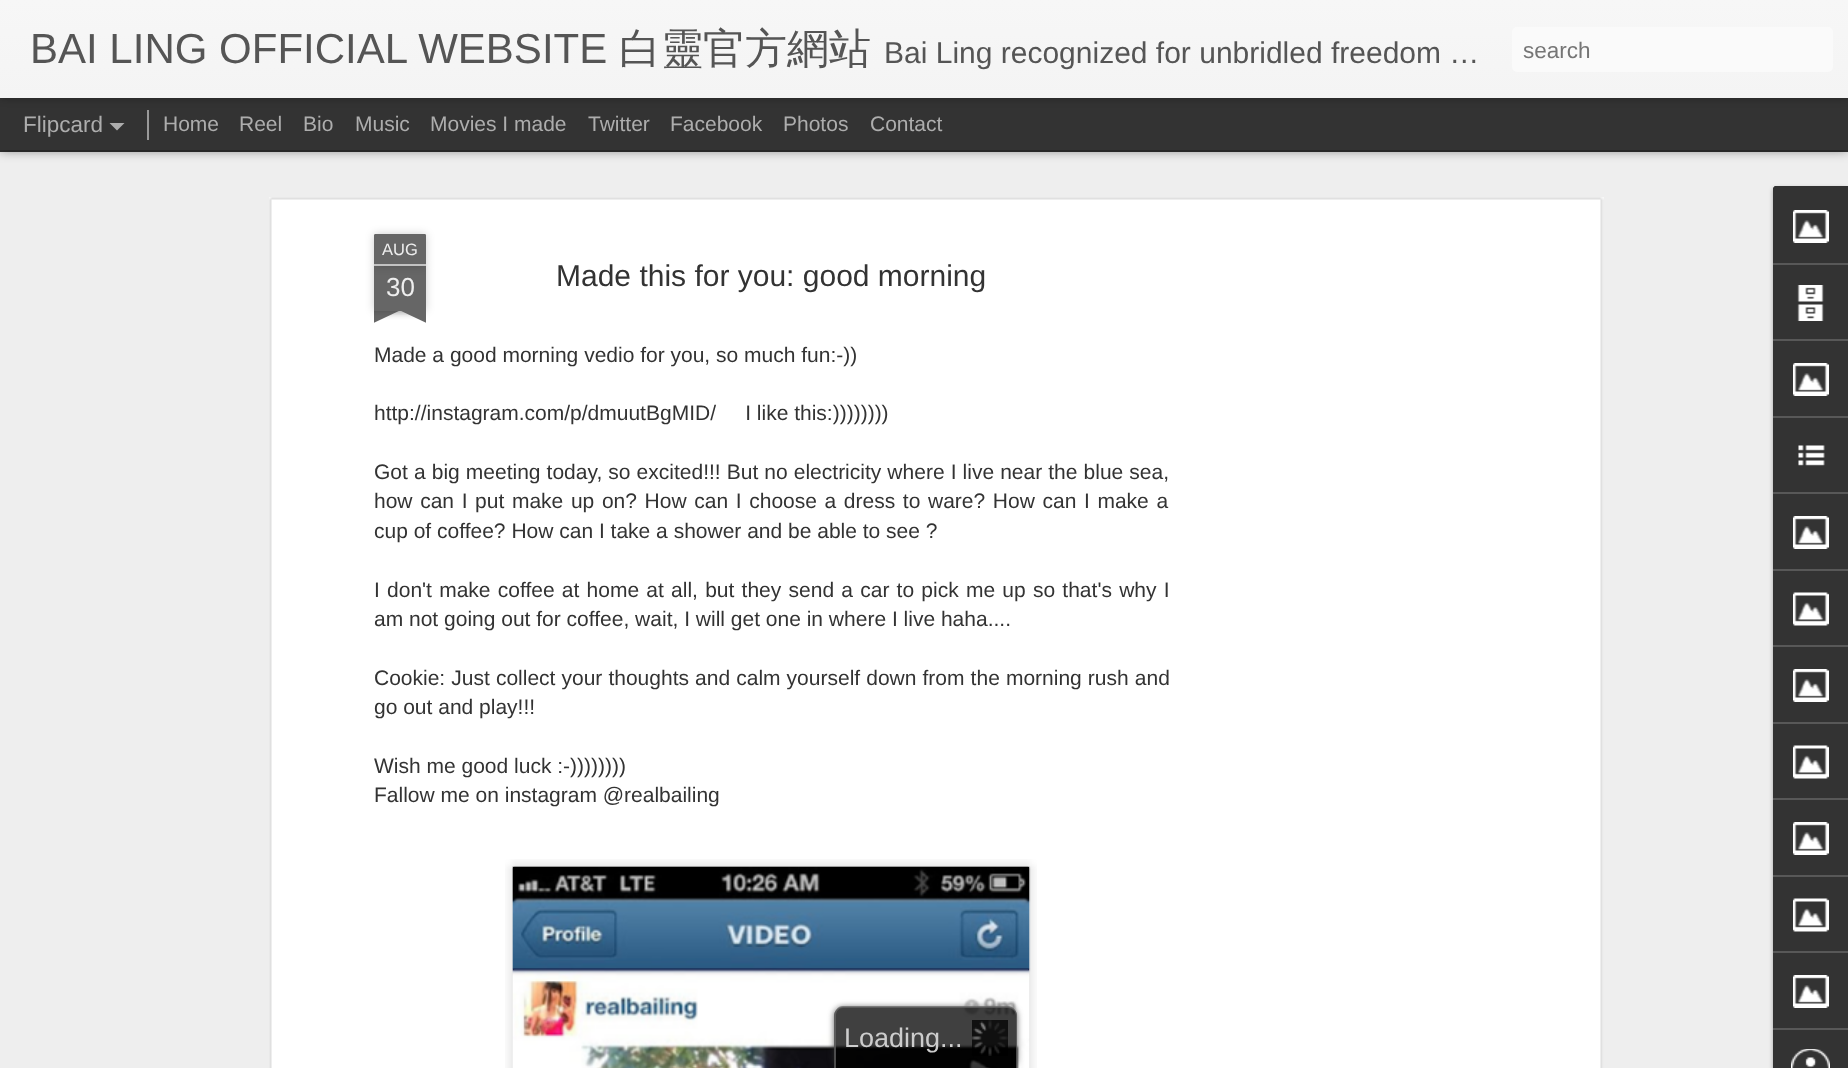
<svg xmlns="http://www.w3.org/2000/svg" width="1848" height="1068">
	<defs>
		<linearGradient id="g1" gradientUnits="userSpaceOnUse" x1="0" y1="0" x2="0" y2="98"><stop offset="0" stop-color="#F7F7F7" /><stop offset="1" stop-color="#F4F4F4" /></linearGradient>
		<clipPath id="clip1"><rect x="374" y="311" width="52" height="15" /></clipPath>
		<clipPath id="clip2"><rect x="374" y="311" width="52" height="15" /></clipPath>
		<clipPath id="clip3"><path d="M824 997H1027V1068H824ZM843 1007H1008C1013 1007 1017 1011 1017 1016V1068H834V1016C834 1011 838 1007 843 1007Z" clip-rule="evenodd" /></clipPath>
	</defs>
	<rect width="100%" height="100%" fill="#333333" />
	<rect x="0" y="152" width="1848" height="916" fill="#EEEEEE" />
	<rect x="0" y="98" width="1848" height="52" fill="#000000" fill-opacity="0.5" filter="blur(6px)" />
	<rect x="0" y="98" width="1848" height="52" fill="#333333" />
	<rect x="147" y="110" width="2" height="30" fill="#999999" />
	<rect x="0" y="0" width="1848" height="98" fill="#000000" fill-opacity="0.3" filter="blur(4px)" />
	<rect x="0" y="0" width="1848" height="98" fill="url(#g1)" />
	<text x="30" y="63" font-family="Liberation Sans" font-size="42" fill="#555555">BAI LING OFFICIAL WEBSITE</text>
	<text x="619" y="63" font-family="WenQuanYi Zen Hei" font-size="42" font-weight="500" fill="#555555">白靈官方網站</text>
	<text x="884" y="63" font-family="Liberation Sans" font-size="30" fill="#555555">Bai Ling recognized for unbridled freedom …</text>
	<rect x="1512" y="27" width="321" height="45" rx="5" fill="#FAFAFA" />
	<text x="1523" y="58" font-family="Liberation Sans" font-size="22.5" fill="#757575">search</text>
	<text x="23" y="132" font-family="Liberation Sans" font-size="22.5" fill="#ADADAD">Flipcard</text>
	<path d="M109.5 123H124.5L117 130.5Z" fill="#ADADAD" />
	<g font-family="Liberation Sans" font-size="21" fill="#ADADAD">
		<text x="163" y="131">Home</text>
		<text x="239" y="131">Reel</text>
		<text x="303" y="131">Bio</text>
		<text x="355" y="131">Music</text>
		<text x="430" y="131">Movies I made</text>
		<text x="588" y="131">Twitter</text>
		<text x="670" y="131">Facebook</text>
		<text x="783" y="131">Photos</text>
		<text x="870" y="131">Contact</text>
	</g>
	<rect x="269" y="197" width="1335" height="871" fill="#FFFFFF" />
	<image x="269" y="197" width="1335" height="871" href="assets/img1.png" />
	<rect x="374" y="266" width="52" height="45" fill="#000000" fill-opacity="0.2" filter="blur(4px)" />
	<rect x="374" y="266" width="52" height="45" fill="#666666" />
	<rect x="374" y="234" width="52" height="32" rx="1.5" fill="#000000" fill-opacity="0.2" filter="blur(4px)" />
	<path d="M375.5 234H424.5C425.5 234 426 234.5 426 235.5V266H374V235.5C374 234.5 374.5 234 375.5 234Z" fill="#666666" />
	<rect x="374" y="264" width="52" height="2" fill="#C2C2C2" />
	<text x="382" y="255" font-family="Liberation Sans" font-size="16.5" fill="#EEEEEE">AUG</text>
	<text x="386" y="296" font-family="Liberation Sans" font-size="26" fill="#EEEEEE">30</text>
	<g clip-path="url(#clip1)">
		<rect x="360" y="296" width="75" height="15" fill="#000000" fill-opacity="0.2" filter="blur(4px)" />
	</g>
	<g clip-path="url(#clip2)">
		<path d="M360 312L428 280L435 294L367 326Z" fill="#666666" />
	</g>
	<g clip-path="url(#clip1)">
		<rect x="365" y="296" width="75" height="15" fill="#000000" fill-opacity="0.2" filter="blur(4px)" />
	</g>
	<g clip-path="url(#clip2)">
		<path d="M371 280L439 312L433 326L365 294Z" fill="#666666" />
	</g>
	<text x="556" y="286" font-family="Liberation Sans" font-size="30" fill="#333333">Made this for you: good morning</text>
	<g font-family="Liberation Sans" font-size="21" fill="#333333">
		<text x="374" y="362">Made a good morning vedio for you, so much fun:-))</text>
		<text x="374" y="420" xml:space="preserve">http://instagram.com/p/dmuutBgMID/     I like this:))))))))</text>
		<text x="374" y="479" word-spacing="0.25">Got a big meeting today, so excited!!! But no electricity where I live near the blue sea,</text>
		<text x="374" y="508" word-spacing="1.8">how can I put make up on? How can I choose a dress to ware? How can I make a</text>
		<text x="374" y="538">cup of coffee? How can I take a shower and be able to see ?</text>
		<text x="374" y="597" word-spacing="1.4">I don't make coffee at home at all, but they send a car to pick me up so that's why I</text>
		<text x="374" y="626">am not going out for coffee, wait, I will get one in where I live haha....</text>
		<text x="374" y="685" word-spacing="0.25">Cookie: Just collect your thoughts and calm yourself down from the morning rush and</text>
		<text x="374" y="714">go out and play!!!</text>
		<text x="374" y="773">Wish me good luck :-))))))))</text>
		<text x="374" y="802">Fallow me on instagram @realbailing</text>
	</g>
	<image x="505" y="859" width="532" height="209" href="assets/img2.png" />
	<image x="512" y="866" width="519" height="202" href="assets/img3.png" />
	<rect x="1773" y="188" width="75" height="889" rx="3" fill="#000000" fill-opacity="0.3" filter="blur(2px)" />
	<path d="M1776 186H1848V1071H1776C1774.5 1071 1773 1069.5 1773 1068V189C1773 187.5 1774.5 186 1776 186Z" fill="#333333" />
	<path d="M1776 186H1848V263H1773V189C1773 187.5 1774.5 186 1776 186Z" fill="#333333" />
	<image x="1793" y="210" width="36" height="33" href="assets/img4.png" />
	<rect x="1773" y="263" width="75" height="2" fill="#585858" />
	<image x="1797" y="285" width="27" height="36" href="assets/img5.png" />
	<rect x="1773" y="339" width="75" height="2" fill="#585858" />
	<image x="1793" y="363" width="36" height="33" href="assets/img4.png" />
	<rect x="1773" y="416" width="75" height="2" fill="#585858" />
	<image x="1798" y="445" width="27" height="21" href="assets/img6.png" />
	<rect x="1773" y="492" width="75" height="2" fill="#585858" />
	<image x="1793" y="516" width="36" height="33" href="assets/img4.png" />
	<rect x="1773" y="569" width="75" height="2" fill="#585858" />
	<image x="1793" y="592" width="36" height="34" href="assets/img7.png" />
	<rect x="1773" y="645" width="75" height="2" fill="#585858" />
	<image x="1793" y="669" width="36" height="33" href="assets/img4.png" />
	<rect x="1773" y="722" width="75" height="2" fill="#585858" />
	<image x="1793" y="745" width="36" height="34" href="assets/img7.png" />
	<rect x="1773" y="798" width="75" height="2" fill="#585858" />
	<image x="1793" y="822" width="36" height="33" href="assets/img4.png" />
	<rect x="1773" y="875" width="75" height="2" fill="#585858" />
	<image x="1793" y="898" width="36" height="34" href="assets/img7.png" />
	<rect x="1773" y="951" width="75" height="2" fill="#585858" />
	<image x="1793" y="975" width="36" height="33" href="assets/img4.png" />
	<rect x="1773" y="1028" width="75" height="2" fill="#585858" />
	<image x="1791" y="1049" width="39" height="19" href="assets/img8.png" />
	<g clip-path="url(#clip3)">
		<rect x="834" y="1007" width="183" height="61" rx="9" fill="#333333" fill-opacity="0.75" filter="blur(3px)" />
	</g>
	<path d="M843 1007H1008C1013 1007 1017 1011 1017 1016V1068H834V1016C834 1011 838 1007 843 1007Z" fill="#000000" fill-opacity="0.75" />
	<path d="M843 1006H1008C1013 1006 1017 1011 1017 1016V1068H834V1016C834 1011 838 1006 843 1006ZM843 1008H1008C1012 1008 1016 1011 1016 1016V1068H836V1016C836 1011 839 1008 843 1008Z" fill="#666666" fill-opacity="0.75" fill-rule="evenodd" />
	<image x="972" y="1020" width="36" height="36" href="assets/img9.png" />
	<g font-family="Liberation Sans" font-size="27" fill="#CDCDCD">
		<text x="844" y="1047">Loading</text>
		<text x="940" y="1047">...</text>
	</g>
</svg>
